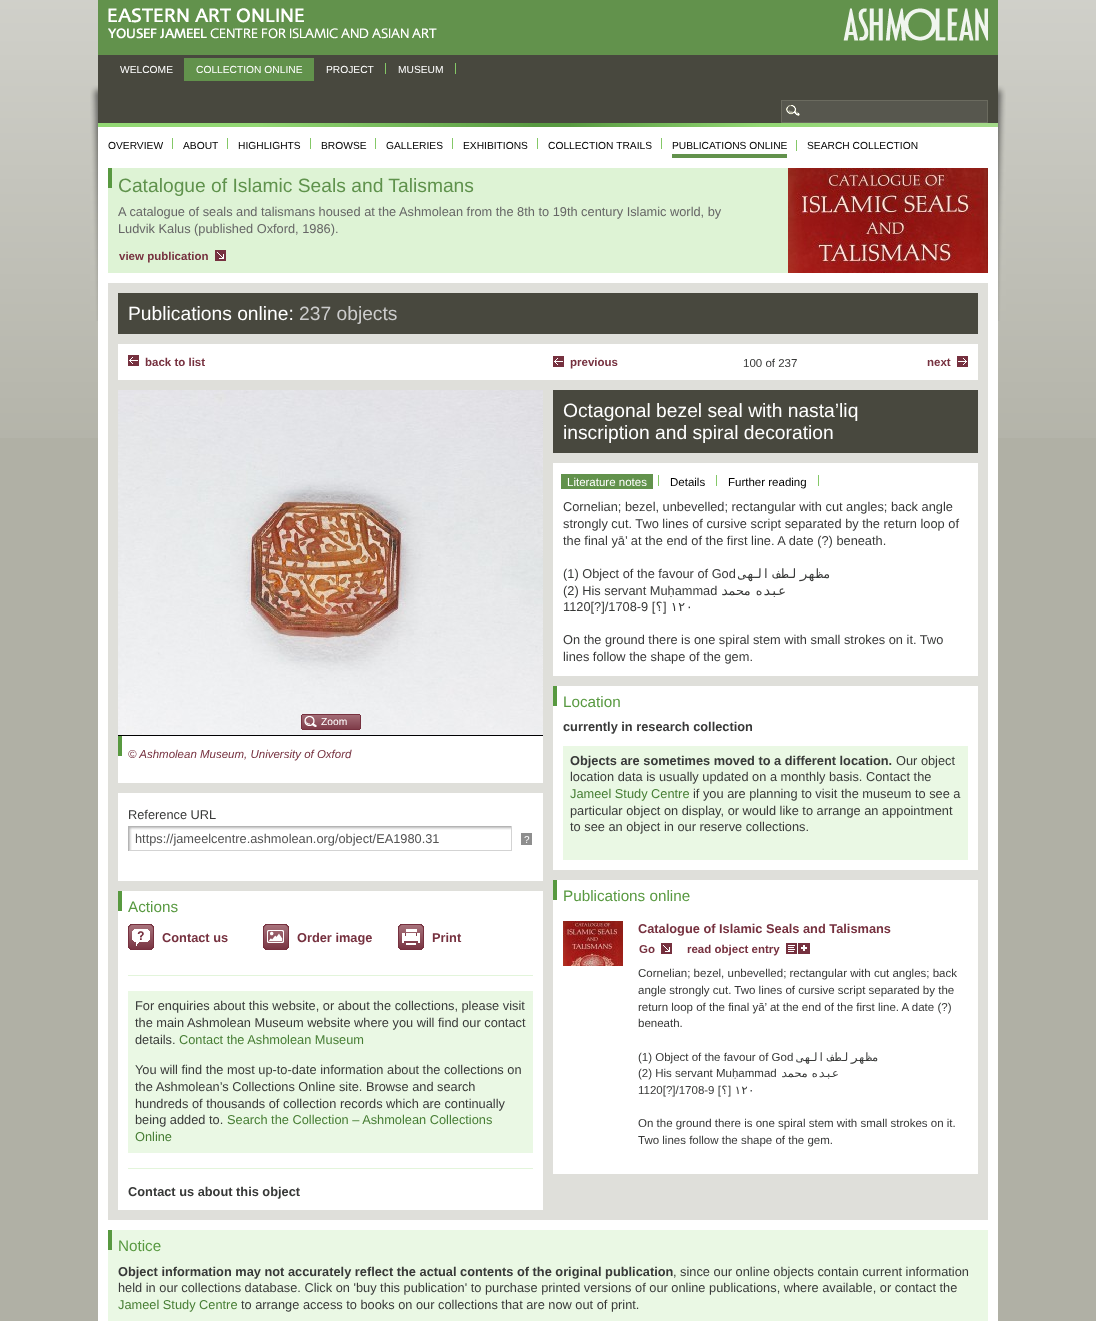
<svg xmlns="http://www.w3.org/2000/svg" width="1096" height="1321">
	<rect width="100%" height="100%" fill="#B0B0A5" />
	<image x="0" y="0" width="1096" height="438" href="assets/img1.png" />
	<image x="90" y="85" width="916" height="236" href="assets/img2.png" />
	<rect x="98" y="0" width="900" height="55" fill="#62924C" />
	<image x="108" y="8" width="329" height="31" href="assets/img3.png" />
	<image x="843" y="8" width="145" height="33" href="assets/img4.png" />
	<rect x="98" y="55" width="900" height="68" fill="#48483E" />
	<text x="120" y="73" font-family="Liberation Sans" font-size="10.25" fill="#FFFFFF">WELCOME</text>
	<rect x="184" y="58" width="130" height="23" fill="#62924C" />
	<text x="196" y="73" font-family="Liberation Sans" font-size="10.25" fill="#FFFFFF">COLLECTION ONLINE</text>
	<rect x="385" y="63" width="1" height="11" fill="#84C867" />
	<text x="326" y="73" font-family="Liberation Sans" font-size="10.25" fill="#FFFFFF">PROJECT</text>
	<rect x="455" y="63" width="1" height="11" fill="#84C867" />
	<text x="398" y="73" font-family="Liberation Sans" font-size="10.25" fill="#FFFFFF">MUSEUM</text>
	<rect x="782" y="101" width="205" height="21" fill="#57574E" />
	<image x="786" y="105" width="14" height="11" href="assets/img5.png" />
	<rect x="781.5" y="100.5" width="206" height="22" fill="none" stroke="#6B6B5F" />
	<rect x="98" y="321" width="900" height="1000" fill="#FFFFFF" />
	<image x="98" y="123" width="900" height="4" href="assets/img6.png" />
	<rect x="172" y="138" width="1" height="11" fill="#84C867" />
	<text x="108" y="149" font-family="Liberation Sans" font-size="10.25" fill="#000000">OVERVIEW</text>
	<rect x="227" y="138" width="1" height="11" fill="#84C867" />
	<text x="183" y="149" font-family="Liberation Sans" font-size="10.25" fill="#000000">ABOUT</text>
	<rect x="310" y="138" width="1" height="11" fill="#84C867" />
	<text x="238" y="149" font-family="Liberation Sans" font-size="10.25" fill="#000000">HIGHLIGHTS</text>
	<rect x="375" y="138" width="1" height="11" fill="#84C867" />
	<text x="321" y="149" font-family="Liberation Sans" font-size="10.25" fill="#000000">BROWSE</text>
	<rect x="452" y="138" width="1" height="11" fill="#84C867" />
	<text x="386" y="149" font-family="Liberation Sans" font-size="10.25" fill="#000000">GALLERIES</text>
	<rect x="537" y="138" width="1" height="11" fill="#84C867" />
	<text x="463" y="149" font-family="Liberation Sans" font-size="10.25" fill="#000000">EXHIBITIONS</text>
	<rect x="661" y="138" width="1" height="11" fill="#84C867" />
	<text x="548" y="149" font-family="Liberation Sans" font-size="10.25" fill="#000000">COLLECTION TRAILS</text>
	<rect x="796" y="140" width="1" height="11" fill="#84C867" />
	<rect x="672" y="154" width="115" height="4" fill="#62924C" />
	<g font-family="Liberation Sans" font-size="10.25" fill="#000000">
		<text x="672" y="149">PUBLICATIONS ONLINE</text>
		<text x="807" y="149">SEARCH COLLECTION</text>
	</g>
	<rect x="108" y="168" width="680" height="105" fill="#DEF3D5" />
	<rect x="108" y="168" width="4" height="20" fill="#589940" />
	<text x="118" y="192" font-family="Liberation Sans" font-size="19.25" fill="#5F924C">Catalogue of Islamic Seals and Talismans</text>
	<g font-family="Liberation Sans" font-size="12.8" fill="#666666">
		<text x="118" y="216">A catalogue of seals and talismans housed at the Ashmolean from the 8th to 19th century Islamic world, by</text>
		<text x="118" y="233">Ludvik Kalus (published Oxford, 1986).</text>
	</g>
	<text x="119" y="260" font-family="Liberation Sans" font-size="11.5" font-weight="700" fill="#76313F">view publication</text>
	<image x="215" y="250" width="11" height="11" href="assets/img7.png" />
	<image x="788" y="168" width="200" height="105" href="assets/img8.png" />
	<rect x="108" y="283" width="880" height="937" fill="#DFDFDA" />
	<rect x="118" y="293" width="860" height="41" fill="#48483E" />
	<text x="128" y="320" font-family="Liberation Sans" font-size="19.25" fill="#FFFFFF">Publications online:</text>
	<text x="299" y="320" font-family="Liberation Sans" font-size="19.25" fill="#CCCCCC">237 objects</text>
	<rect x="118" y="344" width="860" height="36" fill="#FFFFFF" />
	<image x="128" y="355" width="11" height="11" href="assets/img9.png" />
	<text x="145" y="366" font-family="Liberation Sans" font-size="11.5" font-weight="700" fill="#76313F">back to list</text>
	<image x="553" y="356" width="11" height="11" href="assets/img9.png" />
	<text x="570" y="366" font-family="Liberation Sans" font-size="11.5" font-weight="700" fill="#76313F">previous</text>
	<text x="743" y="367" font-family="Liberation Sans" font-size="11.5" fill="#383938">100 of 237</text>
	<text x="927" y="366" font-family="Liberation Sans" font-size="11.5" font-weight="700" fill="#76313F">next</text>
	<image x="957" y="356" width="11" height="11" href="assets/img10.png" />
	<rect x="118" y="736" width="425" height="474" fill="#FFFFFF" />
	<image x="118" y="390" width="425" height="346" href="assets/img11.png" />
	<image x="301" y="714" width="60" height="16" href="assets/img12.png" />
	<image x="304" y="716" width="13" height="11" href="assets/img13.png" />
	<text x="321" y="725" font-family="Liberation Sans" font-size="10.25" fill="#FFFFFF">Zoom</text>
	<rect x="118" y="736" width="4" height="20" fill="#589940" />
	<rect x="118" y="783" width="425" height="10" fill="#DFDFDA" />
	<text x="128" y="758" font-family="Liberation Sans" font-size="11.5" font-style="italic" fill="#76313F">© Ashmolean Museum, University of Oxford</text>
	<rect x="118" y="881" width="425" height="10" fill="#DFDFDA" />
	<text x="128" y="819" font-family="Liberation Sans" font-size="12.8" fill="#383938">Reference URL</text>
	<image x="129" y="827" width="382" height="23" href="assets/img14.png" />
	<rect x="128" y="826" width="384" height="1" fill="#B4B4B4" />
	<rect x="511" y="826" width="1" height="25" fill="#D3D3D3" />
	<rect x="128" y="850" width="384" height="1" fill="#D3D3D3" />
	<rect x="128" y="826" width="1" height="25" fill="#B4B4B4" />
	<text x="135" y="843" font-family="Liberation Sans" font-size="12.8" fill="#525252">https://jameelcentre.ashmolean.org/object/EA1980.31</text>
	<rect x="521" y="833" width="11" height="12" fill="#8E8E8E" />
	<text x="524" y="843" font-family="Liberation Sans" font-size="10" fill="#FFFFFF">?</text>
	<rect x="118" y="891" width="4" height="20" fill="#589940" />
	<text x="128" y="912" font-family="Liberation Sans" font-size="15.25" fill="#589940">Actions</text>
	<image x="128" y="924" width="26" height="26" href="assets/img15.png" />
	<text x="162" y="942" font-family="Liberation Sans" font-size="12.8" font-weight="700" fill="#76313F">Contact us</text>
	<image x="263" y="924" width="26" height="26" href="assets/img16.png" />
	<text x="297" y="942" font-family="Liberation Sans" font-size="12.8" font-weight="700" fill="#76313F">Order image</text>
	<image x="398" y="924" width="26" height="26" href="assets/img17.png" />
	<text x="432" y="942" font-family="Liberation Sans" font-size="12.8" font-weight="700" fill="#76313F">Print</text>
	<rect x="128" y="975" width="405" height="1" fill="#E3F5DB" />
	<rect x="128" y="991" width="405" height="162" fill="#EAF8E4" />
	<g font-family="Liberation Sans" font-size="12.8" fill="#383938">
		<text x="135" y="1010">For enquiries about this website, or about the collections, please visit</text>
		<text x="135" y="1027">the main Ashmolean Museum website where you will find our contact</text>
		<text x="135" y="1044">details.</text>
	</g>
	<text x="179" y="1044" font-family="Liberation Sans" font-size="12.8" fill="#467D33">Contact the Ashmolean Museum</text>
	<g font-family="Liberation Sans" font-size="12.8" fill="#383938">
		<text x="135" y="1074">You will find the most up-to-date information about the collections on</text>
		<text x="135" y="1091">the Ashmolean’s Collections Online site. Browse and search</text>
		<text x="135" y="1108">hundreds of thousands of collection records which are continually</text>
		<text x="135" y="1124">being added to.</text>
	</g>
	<g font-family="Liberation Sans" font-size="12.8" fill="#467D33">
		<text x="227" y="1124">Search the Collection – Ashmolean Collections</text>
		<text x="135" y="1141">Online</text>
	</g>
	<rect x="128" y="1168" width="405" height="1" fill="#E3F5DB" />
	<text x="128" y="1196" font-family="Liberation Sans" font-size="12.8" font-weight="700" fill="#383938">Contact us about this object</text>
	<rect x="553" y="463" width="425" height="711" fill="#FFFFFF" />
	<rect x="553" y="390" width="425" height="63" fill="#48483E" />
	<g font-family="Liberation Sans" font-size="19.25" fill="#FFFFFF">
		<text x="563" y="417">Octagonal bezel seal with nasta’liq</text>
		<text x="563" y="439">inscription and spiral decoration</text>
	</g>
	<rect x="553" y="676" width="425" height="10" fill="#DFDFDA" />
	<rect x="658" y="475" width="1" height="11" fill="#84C867" />
	<rect x="561" y="474" width="92" height="15" fill="#62924C" />
	<text x="567" y="486" font-family="Liberation Sans" font-size="11.5" fill="#FFFFFF">Literature notes</text>
	<rect x="716" y="475" width="1" height="11" fill="#84C867" />
	<text x="670" y="486" font-family="Liberation Sans" font-size="11.5" fill="#000000">Details</text>
	<rect x="818" y="475" width="1" height="11" fill="#84C867" />
	<text x="728" y="486" font-family="Liberation Sans" font-size="11.5" fill="#000000">Further reading</text>
	<g font-family="Liberation Sans" font-size="12.8" fill="#383938">
		<text x="563" y="511">Cornelian; bezel, unbevelled; rectangular with cut angles; back angle</text>
		<text x="563" y="528">strongly cut. Two lines of cursive script separated by the return loop of</text>
		<text x="563" y="545">the final yā’ at the end of the first line. A date (?) beneath.</text>
		<text x="563" y="578">(1) Object of the favour of God</text>
	</g>
	<text x="831" y="578" word-spacing="-4" font-family="DejaVu Sans Mono" font-size="12.8" direction="rtl" fill="#383938">مظهر لطف الهى</text>
	<text x="563" y="595" font-family="Liberation Sans" font-size="12.8" fill="#383938">(2) His servant Muḥammad</text>
	<text x="786" y="595" word-spacing="-4" font-family="DejaVu Sans Mono" font-size="12.8" direction="rtl" fill="#383938">عبده محمد</text>
	<text x="563" y="611" font-family="Liberation Sans" font-size="12.8" fill="#383938">1120[?]/1708-9 [</text>
	<text x="663" y="611" font-family="DejaVu Sans Mono" font-size="12.8" direction="rtl" fill="#383938">؟</text>
	<text x="663" y="611" font-family="Liberation Sans" font-size="12.8" fill="#383938">]</text>
	<text x="670" y="611" font-family="DejaVu Sans Mono" font-size="12.8" fill="#383938">١٢٠</text>
	<g font-family="Liberation Sans" font-size="12.8" fill="#383938">
		<text x="563" y="644">On the ground there is one spiral stem with small strokes on it. Two</text>
		<text x="563" y="661">lines follow the shape of the gem.</text>
	</g>
	<rect x="553" y="686" width="4" height="20" fill="#589940" />
	<rect x="553" y="870" width="425" height="10" fill="#DFDFDA" />
	<text x="563" y="707" font-family="Liberation Sans" font-size="15.25" fill="#589940">Location</text>
	<text x="563" y="731" font-family="Liberation Sans" font-size="12.8" font-weight="700" fill="#383938">currently in research collection</text>
	<rect x="563" y="746" width="405" height="114" fill="#EAF8E4" />
	<text x="570" y="765" font-family="Liberation Sans" font-size="12.8" font-weight="700" fill="#383938">Objects are sometimes moved to a different location.</text>
	<g font-family="Liberation Sans" font-size="12.8" fill="#383938">
		<text x="896" y="765">Our object</text>
		<text x="570" y="781">location data is usually updated on a monthly basis. Contact the</text>
	</g>
	<text x="570" y="798" font-family="Liberation Sans" font-size="12.8" fill="#467D33">Jameel Study Centre</text>
	<g font-family="Liberation Sans" font-size="12.8" fill="#383938">
		<text x="693" y="798">if you are planning to visit the museum to see a</text>
		<text x="570" y="815">particular object on display, or would like to arrange an appointment</text>
		<text x="570" y="831">to see an object in our reserve collections.</text>
	</g>
	<rect x="553" y="880" width="4" height="20" fill="#589940" />
	<text x="563" y="901" font-family="Liberation Sans" font-size="15.25" fill="#589940">Publications online</text>
	<image x="563" y="921" width="60" height="45" href="assets/img18.png" />
	<text x="638" y="933" font-family="Liberation Sans" font-size="12.8" font-weight="700" fill="#76313F">Catalogue of Islamic Seals and Talismans</text>
	<text x="639" y="953" font-family="Liberation Sans" font-size="11.5" font-weight="700" fill="#76313F">Go</text>
	<image x="661" y="943" width="11" height="11" href="assets/img7.png" />
	<text x="687" y="953" font-family="Liberation Sans" font-size="11.5" font-weight="700" fill="#76313F">read object entry</text>
	<image x="786" y="943" width="24" height="11" href="assets/img19.png" />
	<g font-family="Liberation Sans" font-size="11.5" fill="#383938">
		<text x="638" y="977">Cornelian; bezel, unbevelled; rectangular with cut angles; back</text>
		<text x="638" y="994">angle strongly cut. Two lines of cursive script separated by the</text>
		<text x="638" y="1011">return loop of the final yā’ at the end of the first line. A date (?)</text>
		<text x="638" y="1027">beneath.</text>
		<text x="638" y="1061">(1) Object of the favour of God</text>
	</g>
	<text x="879" y="1061" word-spacing="-4" font-family="DejaVu Sans Mono" font-size="11.5" direction="rtl" fill="#383938">مظهر لطف الهى</text>
	<text x="638" y="1077" font-family="Liberation Sans" font-size="11.5" fill="#383938">(2) His servant Muḥammad</text>
	<text x="839" y="1077" word-spacing="-4" font-family="DejaVu Sans Mono" font-size="11.5" direction="rtl" fill="#383938">عبده محمد</text>
	<text x="638" y="1094" font-family="Liberation Sans" font-size="11.5" fill="#383938">1120[?]/1708-9 [</text>
	<text x="728" y="1094" font-family="DejaVu Sans Mono" font-size="11.5" direction="rtl" fill="#383938">؟</text>
	<text x="728" y="1094" font-family="Liberation Sans" font-size="11.5" fill="#383938">]</text>
	<text x="734" y="1094" font-family="DejaVu Sans Mono" font-size="11.5" fill="#383938">١٢٠</text>
	<g font-family="Liberation Sans" font-size="11.5" fill="#383938">
		<text x="638" y="1127">On the ground there is one spiral stem with small strokes on it.</text>
		<text x="638" y="1144">Two lines follow the shape of the gem.</text>
	</g>
	<rect x="108" y="1230" width="880" height="91" fill="#EAF8E4" />
	<rect x="108" y="1230" width="4" height="20" fill="#589940" />
	<text x="118" y="1251" font-family="Liberation Sans" font-size="15.25" fill="#589940">Notice</text>
	<text x="118" y="1276" font-family="Liberation Sans" font-size="12.8" font-weight="700" fill="#383938">Object information may not accurately reflect the actual contents of the original publication</text>
	<g font-family="Liberation Sans" font-size="12.8" fill="#383938">
		<text x="673" y="1276">, since our online objects contain current information</text>
		<text x="118" y="1292">held in our collections database. Click on 'buy this publication' to purchase printed versions of our online publications, where available, or contact the</text>
	</g>
	<text x="118" y="1309" font-family="Liberation Sans" font-size="12.8" fill="#467D33">Jameel Study Centre</text>
	<text x="241" y="1309" font-family="Liberation Sans" font-size="12.8" fill="#383938">to arrange access to books on our collections that are now out of print.</text>
</svg>
